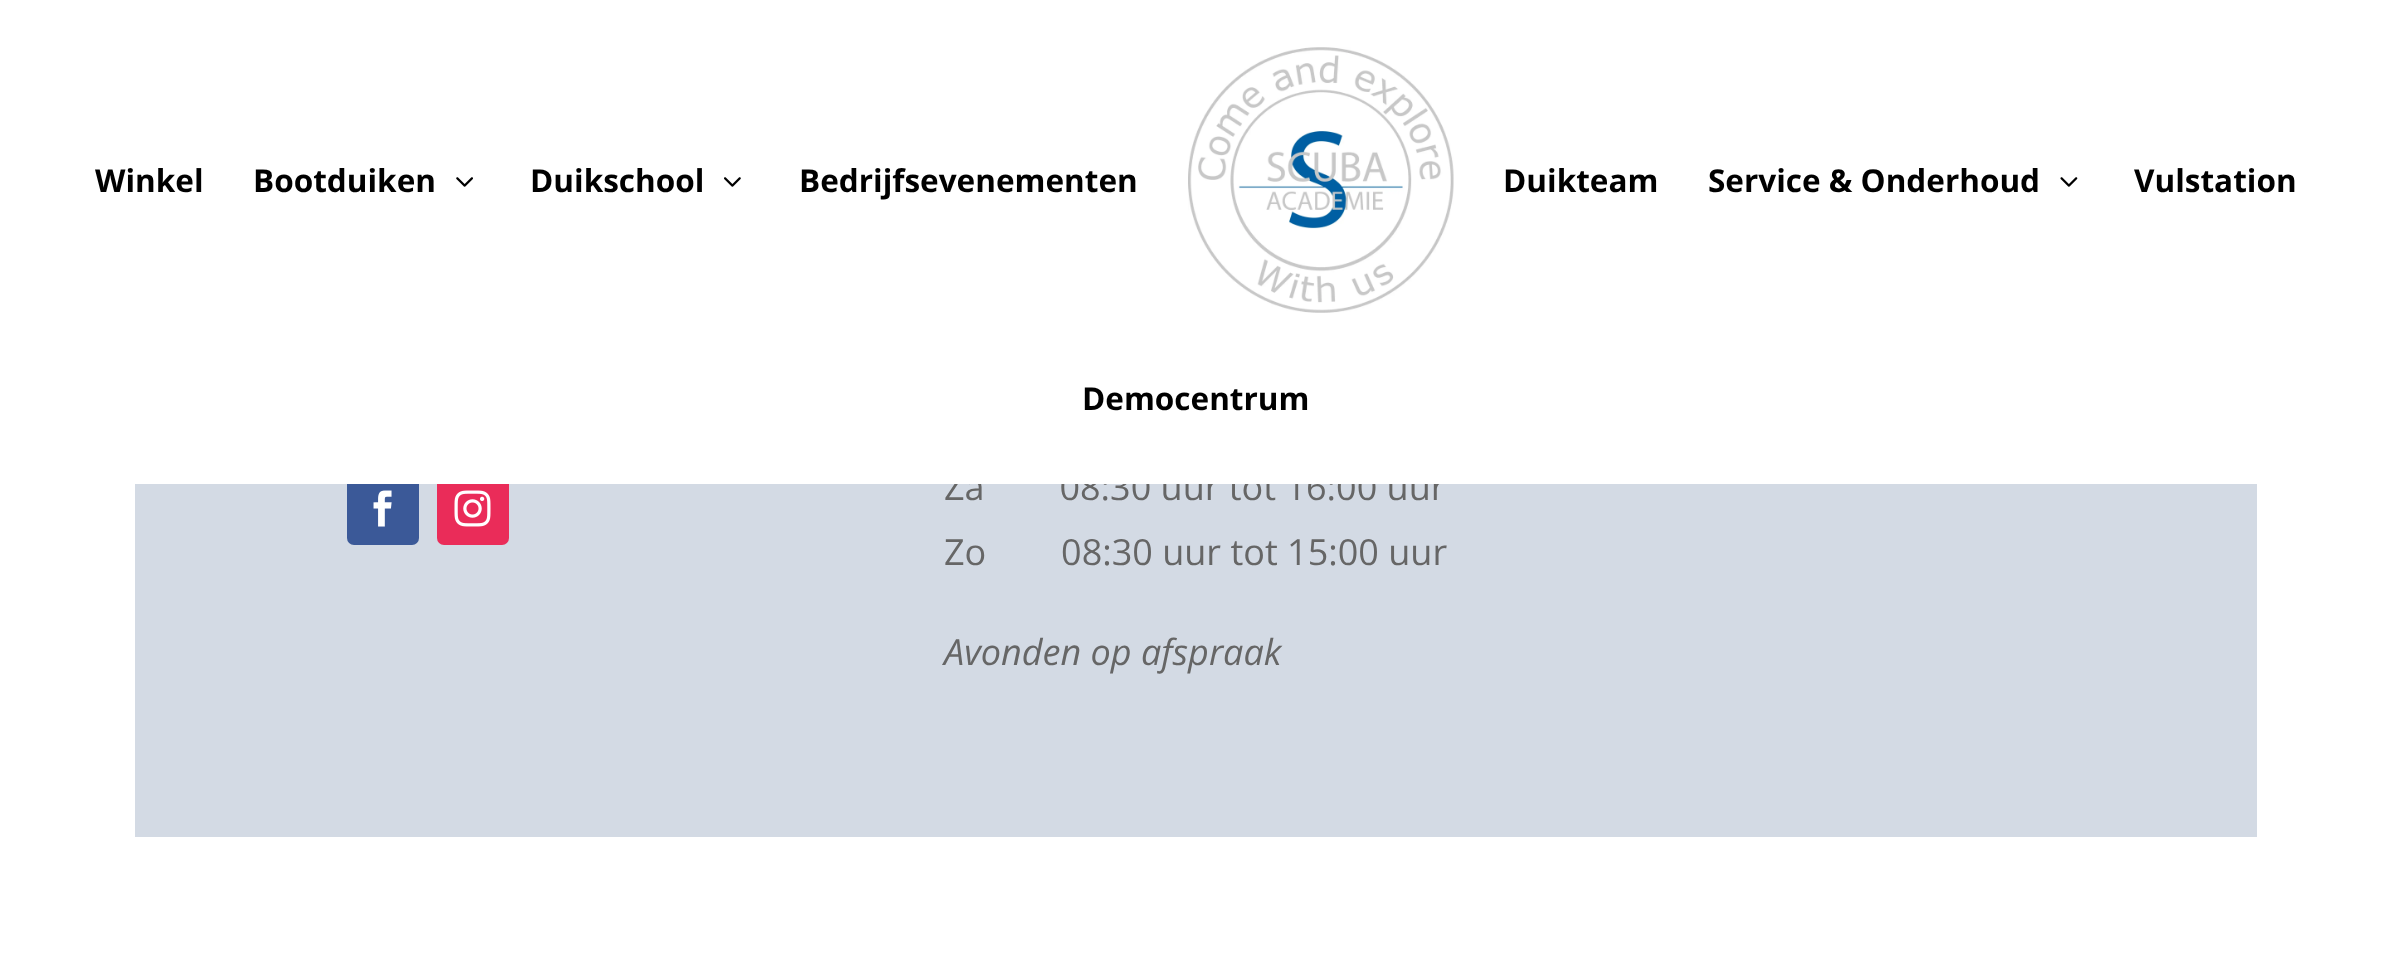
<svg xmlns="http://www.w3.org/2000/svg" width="2390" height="972">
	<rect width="100%" height="100%" fill="#FFFFFF" />
	<rect x="135" y="484" width="2122" height="353" fill="#D3DAE4" />
	<rect x="347" y="473" width="72" height="72" rx="7" fill="#3B5998" />
	<rect x="437" y="473" width="72" height="72" rx="7" fill="#EA2C59" />
	<text x="944" y="500" font-family="Open Sans" font-size="36" fill="#666666" xml:space="preserve">Za        08:30 uur tot 16:00 uur</text>
	<rect x="347" y="473" width="1098" height="11" fill="#FFFFFF" />
	<g font-family="Open Sans" font-size="31.5" font-weight="700" fill="#000000">
		<text x="95" y="192">Winkel</text>
		<text x="253" y="192">Bootduiken</text>
	</g>
	<image x="456" y="177" width="17" height="10" href="assets/img1.png" />
	<text x="530" y="192" font-family="Open Sans" font-size="31.5" font-weight="700" fill="#000000">Duikschool</text>
	<image x="724" y="177" width="17" height="10" href="assets/img2.png" />
	<text x="799" y="192" font-family="Open Sans" font-size="31.5" font-weight="700" fill="#000000">Bedrijfsevenementen</text>
	<image x="1188" y="47" width="266" height="266" href="assets/img3.png" />
	<g font-family="Open Sans" font-size="31.5" font-weight="700" fill="#000000">
		<text x="1503" y="192">Duikteam</text>
		<text x="1708" y="192">Service &amp; Onderhoud</text>
	</g>
	<image x="2060" y="177" width="18" height="10" href="assets/img4.png" />
	<g font-family="Open Sans" font-size="31.5" font-weight="700" fill="#000000">
		<text x="2134" y="192">Vulstation</text>
		<text x="1082" y="410">Democentrum</text>
	</g>
	<image x="373" y="490" width="19" height="37" href="assets/img5.png" />
	<image x="454" y="490" width="37" height="37" href="assets/img6.png" />
	<text x="944" y="565" font-family="Open Sans" font-size="36" fill="#666666" xml:space="preserve">Zo        08:30 uur tot 15:00 uur</text>
	<text x="944" y="665" font-family="Open Sans" font-size="36" font-style="italic" fill="#666666">Avonden op afspraak</text>
</svg>
